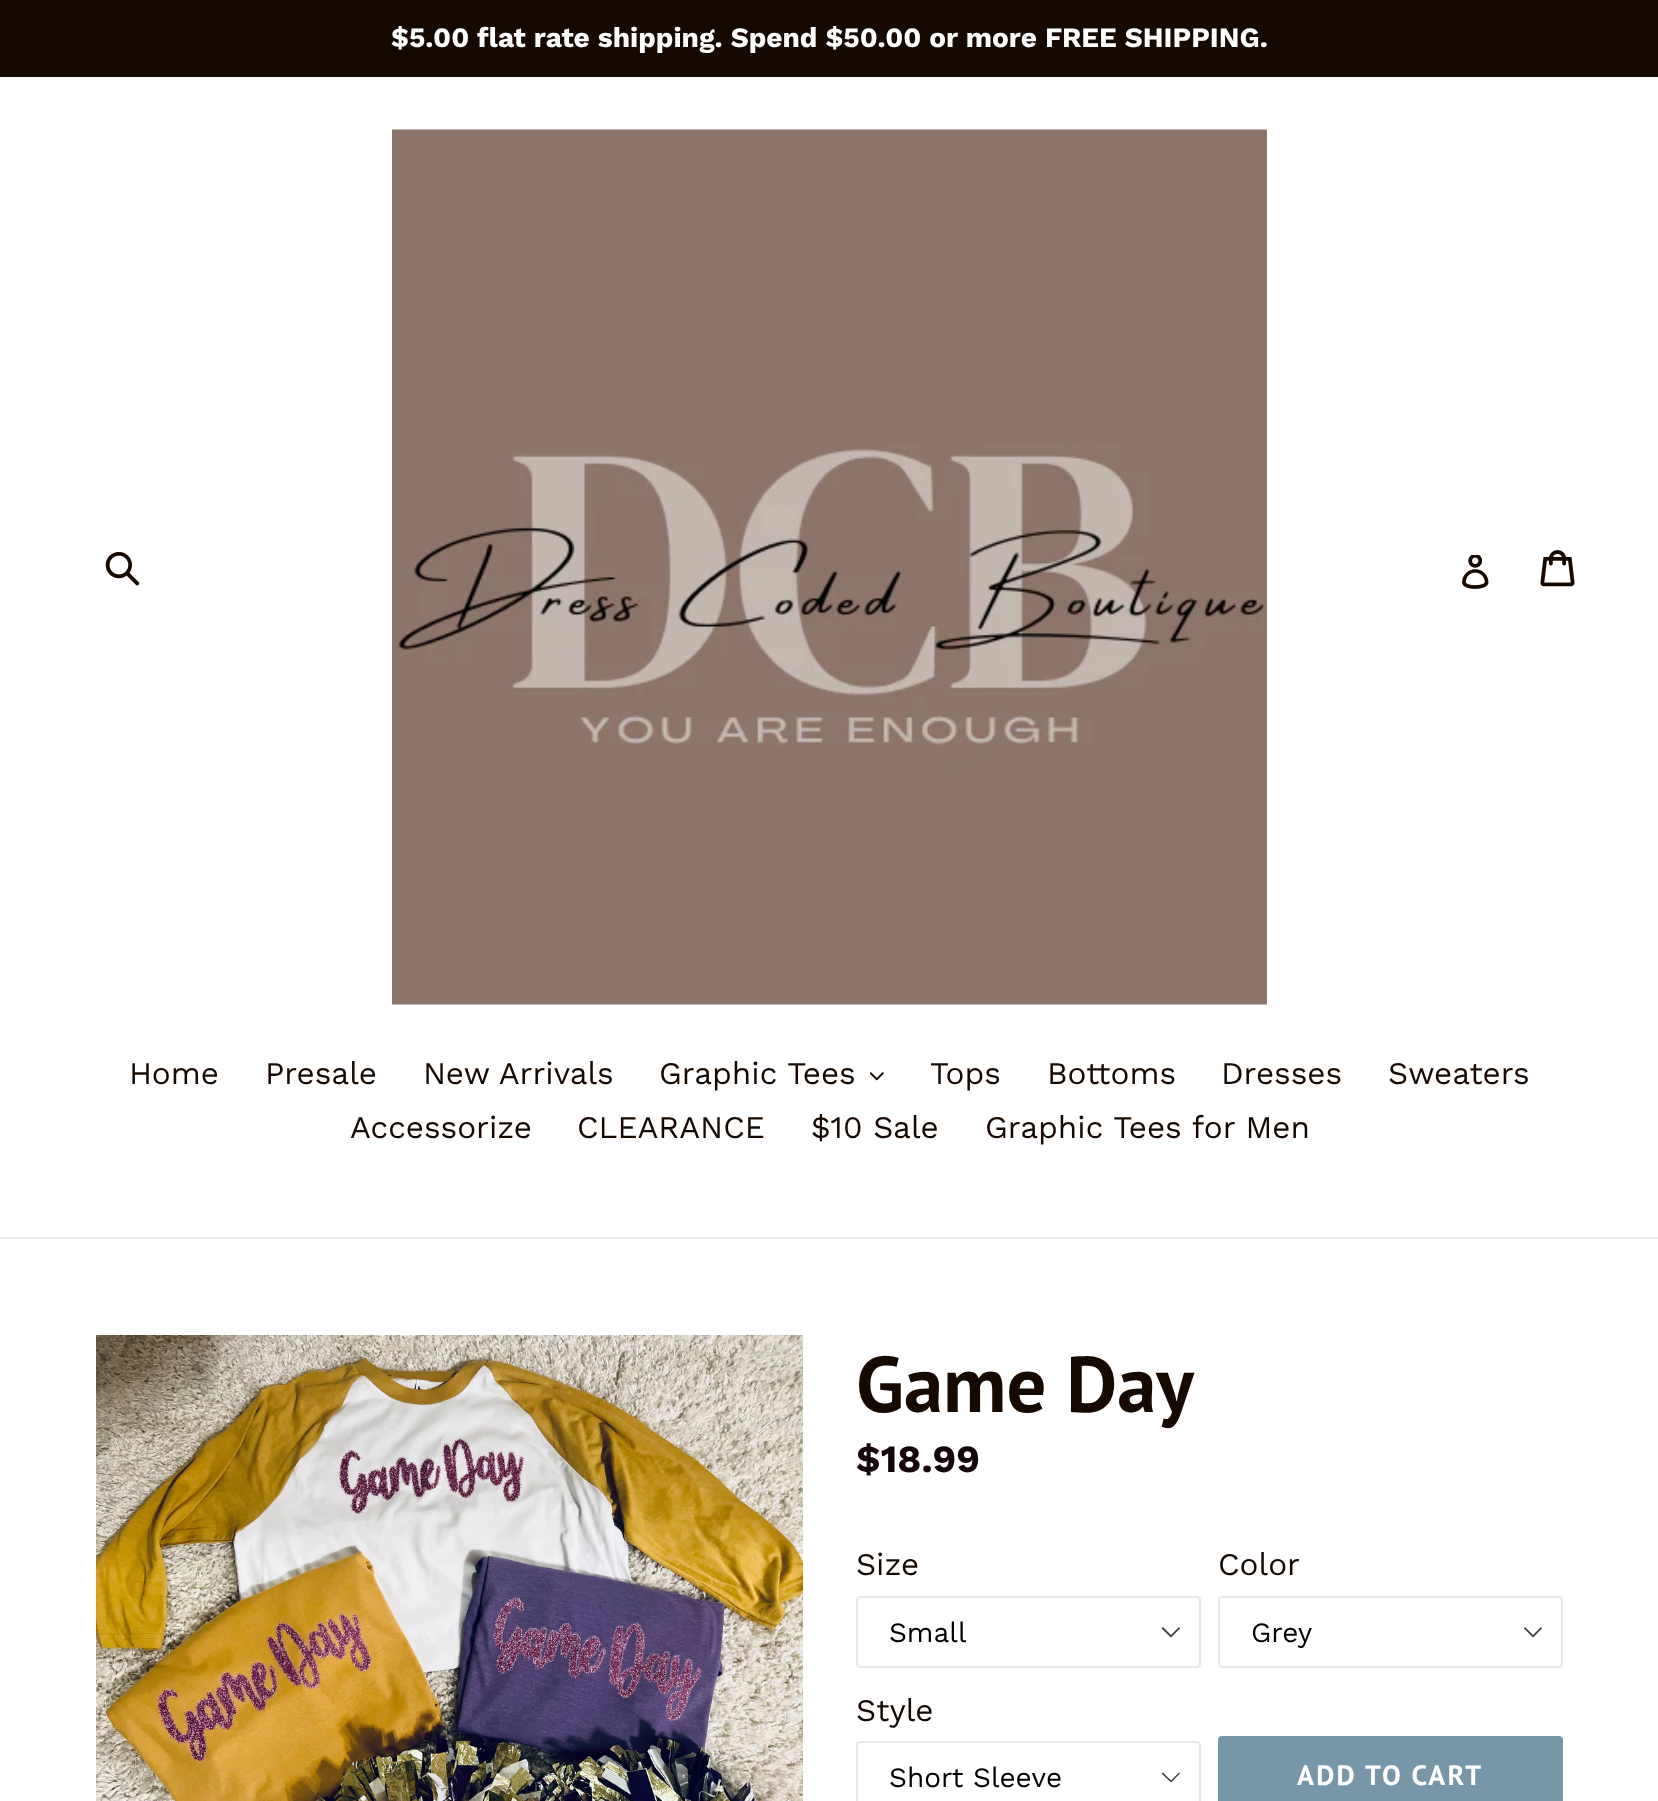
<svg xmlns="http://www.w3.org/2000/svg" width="1658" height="1801">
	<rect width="100%" height="100%" fill="#FFFFFF" />
	<rect x="0" y="0" width="1658" height="77" fill="#150901" />
	<text x="391" y="47" font-family="Work Sans" font-size="28" font-weight="700" fill="#FFFFFF">$5.00 flat rate shipping. Spend $50.00 or more FREE SHIPPING.</text>
	<image x="105" y="551" width="35" height="35" href="assets/img1.png" />
	<image x="392" y="129" width="875" height="876" href="assets/img2.png" />
	<image x="1462" y="555" width="27" height="34" href="assets/img3.png" />
	<image x="1540" y="550" width="35" height="37" href="assets/img4.png" />
	<rect x="0" y="1237" width="1658" height="2" fill="#E8E9EB" />
	<g font-family="Work Sans" font-size="31.5" fill="#150901">
		<text x="129" y="1084">Home</text>
		<text x="265" y="1084">Presale</text>
		<text x="423" y="1084">New Arrivals</text>
		<text x="659" y="1084">Graphic Tees</text>
	</g>
	<image x="870" y="1072" width="14" height="9" href="assets/img5.png" />
	<g font-family="Work Sans" font-size="31.5" fill="#150901">
		<text x="930" y="1084">Tops</text>
		<text x="1047" y="1084">Bottoms</text>
		<text x="1221" y="1084">Dresses</text>
		<text x="1388" y="1084">Sweaters</text>
		<text x="350" y="1138">Accessorize</text>
		<text x="577" y="1138">CLEARANCE</text>
		<text x="811" y="1138">$10 Sale</text>
		<text x="985" y="1138">Graphic Tees for Men</text>
	</g>
	<image x="96" y="1335" width="707" height="466" href="assets/img6.png" />
	<text x="856" y="1412" font-family="PT Sans" font-size="78.75" font-weight="700" fill="#150901">Game Day</text>
	<text x="856" y="1472" font-family="Work Sans" font-size="38.5" font-weight="700" fill="#15060A">$18.99</text>
	<text x="856" y="1575" font-family="Work Sans" font-size="31.5" fill="#150901">Size</text>
	<path d="M1171 1637.5L1161.5 1628.5L1163 1627L1171 1635L1179 1627L1180 1628.5Z" fill="#3D4246" />
	<rect x="857" y="1597" width="343" height="70" rx="3" fill="none" stroke="#E8E9EB" stroke-width="2" />
	<text x="889" y="1642" font-family="Work Sans" font-size="28" fill="#000000">Small</text>
	<text x="1218" y="1575" font-family="Work Sans" font-size="31.5" fill="#150901">Color</text>
	<path d="M1533 1637.5L1524 1628.5L1525 1627L1533 1635L1541 1627L1542 1628.5Z" fill="#3D4246" />
	<rect x="1219" y="1597" width="343" height="70" rx="3" fill="none" stroke="#E8E9EB" stroke-width="2" />
	<text x="1251" y="1642" font-family="Work Sans" font-size="28" fill="#000000">Grey</text>
	<text x="856" y="1721" font-family="Work Sans" font-size="31.5" fill="#150901">Style</text>
	<path d="M1171 1782.5L1161.5 1773.5L1163 1772.5L1171 1780.5L1179 1772.5L1180 1773.5Z" fill="#3D4246" />
	<rect x="857" y="1742" width="343" height="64" rx="3" fill="none" stroke="#E8E9EB" stroke-width="2" />
	<text x="889" y="1787" font-family="Work Sans" font-size="28" fill="#000000">Short Sleeve</text>
	<rect x="1218" y="1736" width="345" height="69" rx="4" fill="#7796A8" />
	<text x="1297" y="1785" font-family="PT Sans" font-size="28" font-weight="700" letter-spacing="2.25" fill="#FFFFFF">ADD TO CART</text>
</svg>
